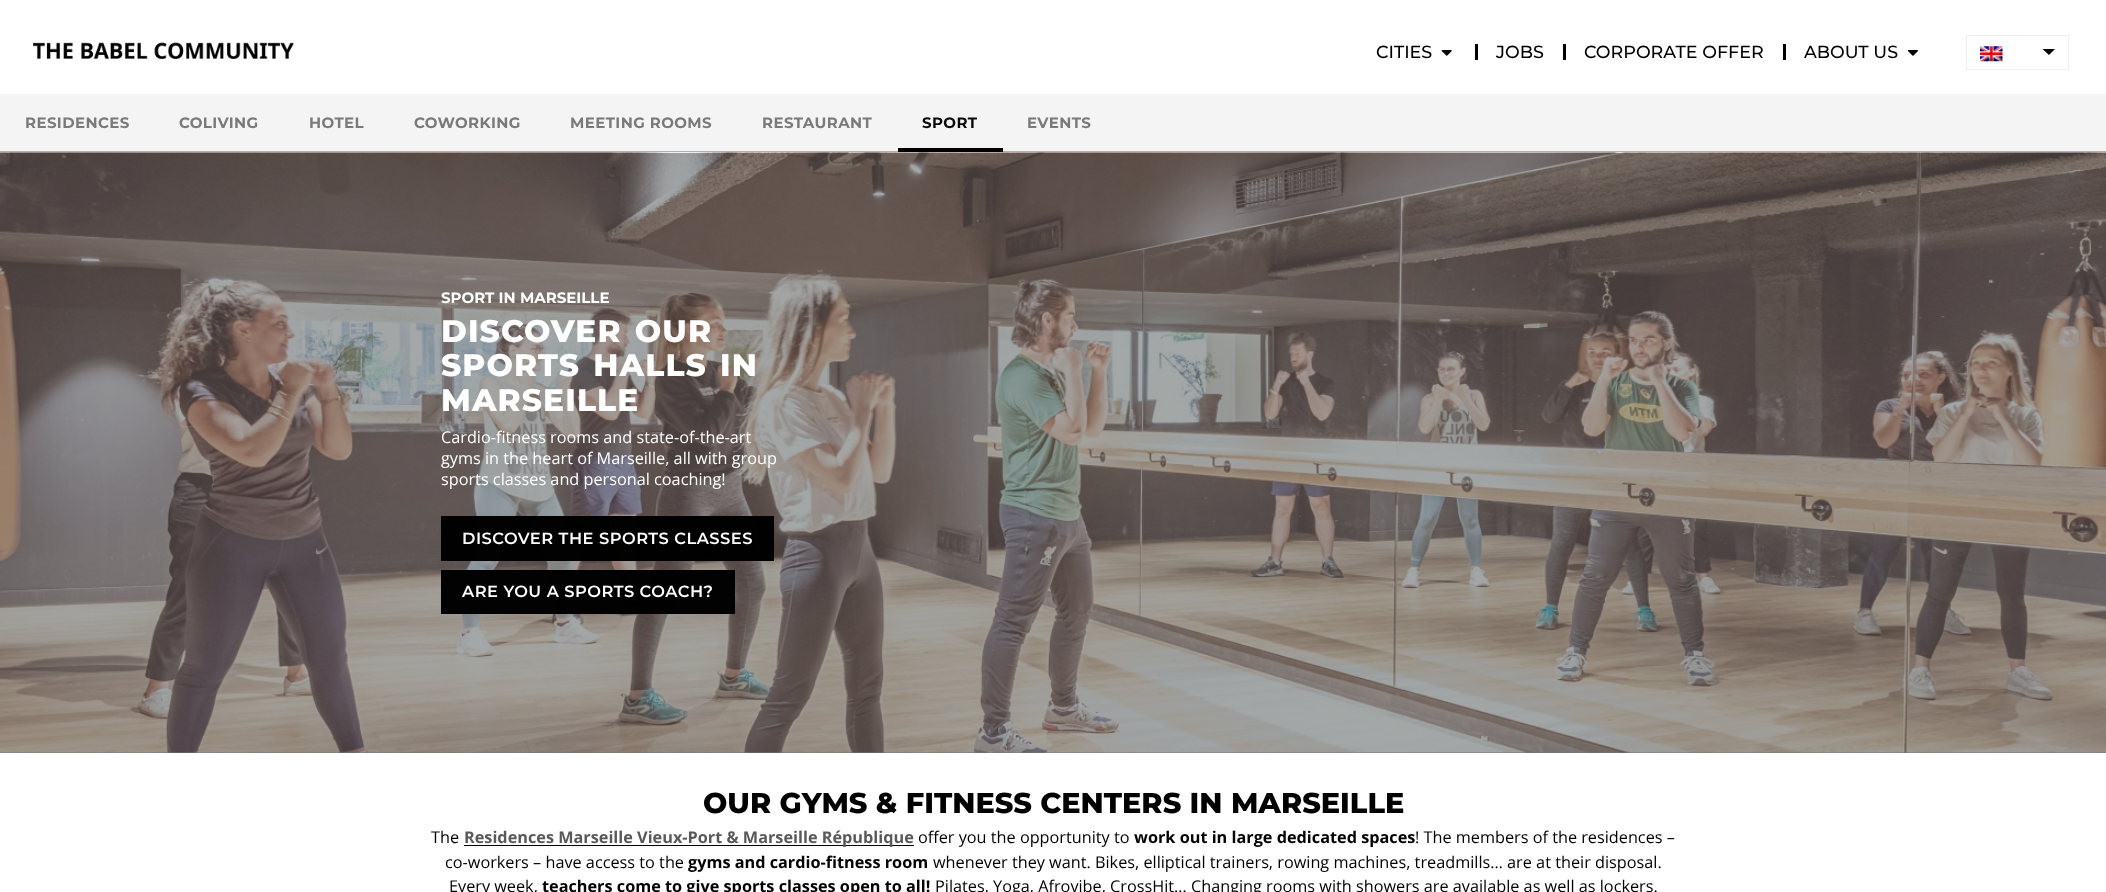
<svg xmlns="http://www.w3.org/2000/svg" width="2106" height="892">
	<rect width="100%" height="100%" fill="#FFFFFF" />
	<rect x="0" y="151" width="2106" height="1" fill="#B0B0B0" />
	<image x="32" y="42" width="262" height="18" href="assets/img1.png" />
	<text x="1376" y="58" font-family="Montserrat" font-size="17.5" font-weight="500" fill="#000000">CITIES</text>
	<image x="1441" y="50" width="11" height="6" href="assets/img2.png" />
	<rect x="1475" y="44" width="3" height="16" fill="#000000" />
	<text x="1496" y="58" font-family="Montserrat" font-size="17.5" font-weight="500" fill="#000000">JOBS</text>
	<rect x="1563" y="44" width="3" height="16" fill="#000000" />
	<text x="1584" y="58" font-family="Montserrat" font-size="17.5" font-weight="500" fill="#000000">CORPORATE OFFER</text>
	<rect x="1783" y="44" width="3" height="16" fill="#000000" />
	<text x="1804" y="58" font-family="Montserrat" font-size="17.5" font-weight="500" fill="#000000">ABOUT US</text>
	<image x="1907" y="50" width="11" height="6" href="assets/img3.png" />
	<rect x="1966.5" y="35.5" width="102" height="34" fill="none" stroke="#EEEEEE" />
	<image x="1980" y="46" width="23" height="16" href="assets/img4.png" />
	<path d="M2042.5 49H2055L2049 55Z" fill="#090000" />
	<rect x="0" y="94" width="2106" height="57" fill="#F4F4F4" />
	<g font-family="Montserrat" font-size="15" font-weight="700" letter-spacing="0.4" fill="#7A7A7A">
		<text x="25" y="128">RESIDENCES</text>
		<text x="179" y="128">COLIVING</text>
		<text x="309" y="128">HOTEL</text>
		<text x="414" y="128">COWORKING</text>
		<text x="570" y="128">MEETING ROOMS</text>
		<text x="762" y="128">RESTAURANT</text>
	</g>
	<text x="922" y="128" font-family="Montserrat" font-size="15" font-weight="700" letter-spacing="0.4" fill="#0A0A0A">SPORT</text>
	<rect x="898" y="148" width="105" height="4" fill="#000000" />
	<text x="1027" y="128" font-family="Montserrat" font-size="15" font-weight="700" letter-spacing="0.4" fill="#7A7A7A">EVENTS</text>
	<rect x="0" y="752" width="2106" height="1" fill="#767676" />
	<image x="0" y="152" width="2106" height="601" href="assets/img5.png" />
	<text x="441" y="303" font-family="Montserrat" font-size="15" font-weight="700" fill="#FFFFFF">SPORT IN MARSEILLE</text>
	<g font-family="Montserrat" font-size="31.25" font-weight="800" letter-spacing="1.1" fill="#FFFFFF">
		<text x="441" y="342" word-spacing="3">DISCOVER OUR</text>
		<text x="441" y="376" word-spacing="3">SPORTS HALLS IN</text>
		<text x="441" y="411">MARSEILLE</text>
	</g>
	<g font-family="Open Sans" font-size="16.25" fill="#FFFFFF">
		<text x="441" y="443">Cardio-fitness rooms and state-of-the-art</text>
		<text x="441" y="464">gyms in the heart of Marseille, all with group</text>
		<text x="441" y="485">sports classes and personal coaching!</text>
	</g>
	<rect x="441" y="516" width="333" height="45" fill="#000000" fill-opacity="0.99" />
	<text x="462" y="544" font-family="Montserrat" font-size="16.25" font-weight="600" letter-spacing="0.5" fill="#FFFFFF">DISCOVER THE SPORTS CLASSES</text>
	<rect x="441" y="570" width="294" height="44" fill="#000000" fill-opacity="0.99" />
	<text x="462" y="597" font-family="Montserrat" font-size="16.25" font-weight="600" letter-spacing="0.5" fill="#FFFFFF">ARE YOU A SPORTS COACH?</text>
	<text x="703" y="813" font-family="Montserrat" font-size="28.75" font-weight="800" fill="#000000">OUR GYMS &amp; FITNESS CENTERS IN MARSEILLE</text>
	<text x="431" y="843" font-family="Open Sans" font-size="16.25" fill="#000000">The</text>
	<rect x="464" y="845" width="450" height="1" fill="#000000" />
	<text x="464" y="843" font-family="Open Sans" font-size="16.25" font-weight="700" fill="#595959">Residences Marseille Vieux-Port &amp; Marseille République</text>
	<text x="918" y="843" font-family="Open Sans" font-size="16.25" fill="#000000">offer you the opportunity to</text>
	<text x="1134" y="843" font-family="Open Sans" font-size="16.25" font-weight="700" fill="#000000">work out in large dedicated spaces</text>
	<g font-family="Open Sans" font-size="16.25" fill="#000000">
		<text x="1415" y="843">! The members of the residences –</text>
		<text x="445" y="868">co-workers – have access to the</text>
	</g>
	<text x="688" y="868" font-family="Open Sans" font-size="16.25" font-weight="700" fill="#000000">gyms and cardio-fitness room</text>
	<g font-family="Open Sans" font-size="16.25" fill="#000000">
		<text x="933" y="868">whenever they want. Bikes, elliptical trainers, rowing machines, treadmills… are at their disposal.</text>
		<text x="449" y="892">Every week,</text>
	</g>
	<text x="542" y="892" font-family="Open Sans" font-size="16.25" font-weight="700" fill="#000000">teachers come to give sports classes open to all!</text>
	<text x="935" y="892" font-family="Open Sans" font-size="16.25" fill="#000000">Pilates, Yoga, Afrovibe, CrossHit… Changing rooms with showers are available as well as lockers.</text>
</svg>
